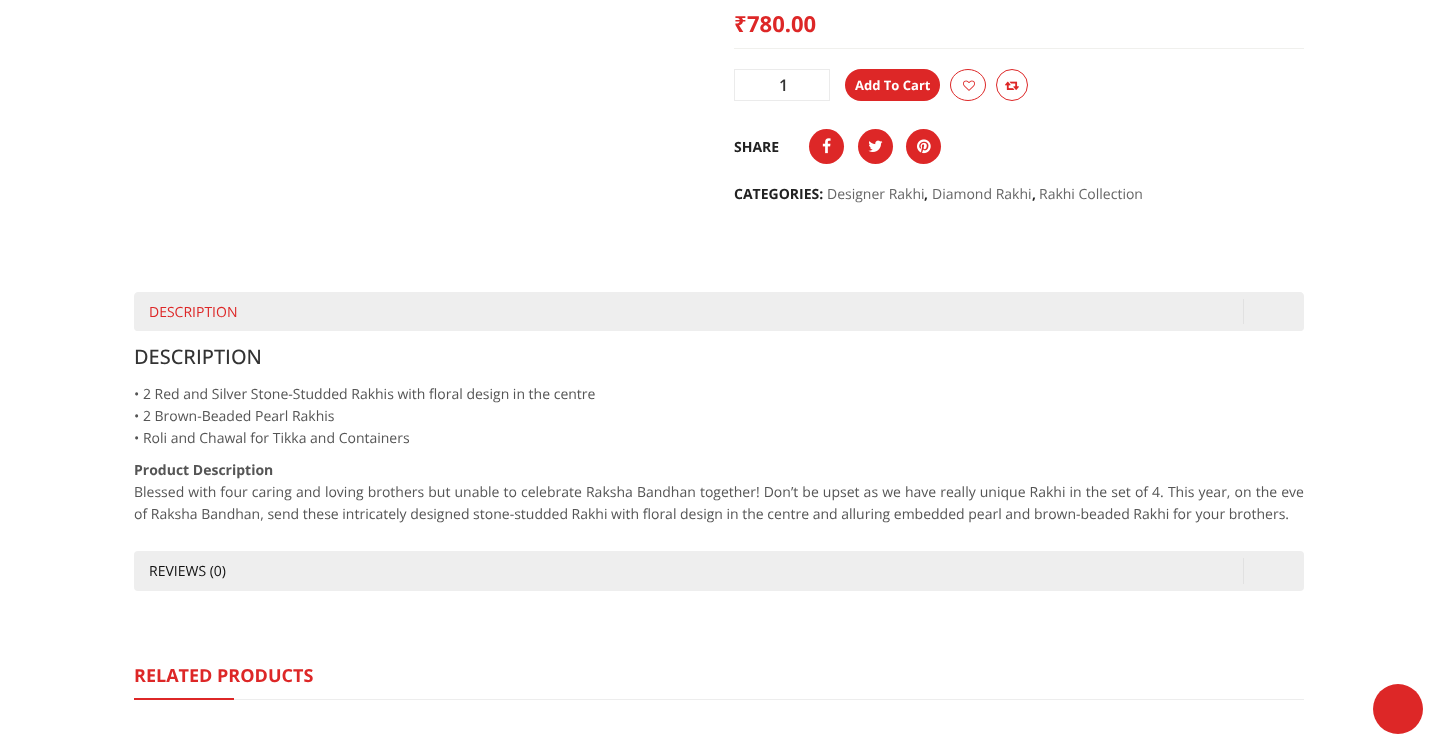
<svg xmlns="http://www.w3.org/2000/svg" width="1438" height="749">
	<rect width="100%" height="100%" fill="#FFFFFF" />
	<text x="734" y="32" font-family="Noto Sans" font-size="22" font-weight="700" fill="#DD2727">₹</text>
	<text x="747" y="32" font-family="Open Sans" font-size="22" font-weight="700" fill="#DD2727">780.00</text>
	<rect x="734" y="48" width="570" height="1" fill="#F0F0ED" />
	<rect x="734.5" y="69.5" width="95" height="31" fill="none" stroke="#EBEBEB" />
	<text x="779" y="91" font-family="Open Sans" font-size="16" font-weight="600" fill="#333333">1</text>
	<rect x="845" y="69" width="95" height="32" rx="16" fill="#DD2727" />
	<text x="855" y="90" font-family="Open Sans" font-size="13" font-weight="700" fill="#FFFFFF">Add To Cart</text>
	<path d="M968 69.5C977.5 69.5 985.5 76.5 985.5 85C985.5 93.5 977.5 100.5 968 100.5C958.5 100.5 950.5 93.5 950.5 85C950.5 76.5 958.5 69.5 968 69.5Z" fill="none" stroke="#DD2727" />
	<image x="963" y="80" width="12" height="11" href="assets/img1.png" />
	<circle cx="1012" cy="85" r="15.5" fill="none" stroke="#DD2727" />
	<image x="1005" y="81" width="14" height="9" href="assets/img2.png" />
	<text x="734" y="152" font-family="Open Sans" font-size="14" font-weight="700" fill="#222222">SHARE</text>
	<circle cx="826.5" cy="146.5" r="17.5" fill="#DD2727" />
	<image x="822" y="138" width="9" height="16" href="assets/img3.png" />
	<circle cx="875.5" cy="146.5" r="17.5" fill="#DD2727" />
	<image x="868" y="140" width="15" height="12" href="assets/img4.png" />
	<circle cx="923.5" cy="146.5" r="17.5" fill="#DD2727" />
	<image x="917" y="139" width="14" height="15" href="assets/img5.png" />
	<text x="734" y="199" font-family="Open Sans" font-size="14" font-weight="700" fill="#222222">CATEGORIES:</text>
	<text x="827" y="199" font-family="Open Sans" font-size="14" fill="#666666">Designer Rakhi</text>
	<text x="924" y="199" font-family="Open Sans" font-size="14" font-weight="700" fill="#222222">,</text>
	<text x="932" y="199" font-family="Open Sans" font-size="14" fill="#666666">Diamond Rakhi</text>
	<text x="1032" y="199" font-family="Open Sans" font-size="14" font-weight="700" fill="#222222">,</text>
	<text x="1039" y="199" font-family="Open Sans" font-size="14" fill="#666666">Rakhi Collection</text>
	<path d="M138 292H1300C1302 292 1304 294 1304 296V328C1304 329.5 1302.5 331 1301 331H137C135.5 331 134 329.5 134 328V296C134 294 136 292 138 292Z" fill="#EEEEEE" />
	<text x="149" y="317" font-family="Open Sans" font-size="14" fill="#DD2727">DESCRIPTION</text>
	<rect x="1243" y="299" width="1" height="25" fill="#E1E1E1" />
	<text x="134" y="364" font-family="Open Sans" font-size="20" font-weight="500" fill="#333333">DESCRIPTION</text>
	<g font-family="Open Sans" font-size="14" fill="#555555">
		<text x="134" y="399">• 2 Red and Silver Stone-Studded Rakhis with floral design in the centre</text>
		<text x="134" y="421">• 2 Brown-Beaded Pearl Rakhis</text>
		<text x="134" y="443">• Roli and Chawal for Tikka and Containers</text>
	</g>
	<text x="134" y="475" font-family="Open Sans" font-size="14" font-weight="700" fill="#555555">Product Description</text>
	<g font-family="Open Sans" font-size="14" fill="#555555">
		<text x="134" y="497" word-spacing="0.45">Blessed with four caring and loving brothers but unable to celebrate Raksha Bandhan together! Don’t be upset as we have really unique Rakhi in the set of 4. This year, on the eve</text>
		<text x="134" y="519">of Raksha Bandhan, send these intricately designed stone-studded Rakhi with floral design in the centre and alluring embedded pearl and brown-beaded Rakhi for your brothers.</text>
	</g>
	<rect x="134" y="551" width="1170" height="40" rx="4" fill="#EEEEEE" />
	<text x="149" y="576" font-family="Open Sans" font-size="14" fill="#111111">REVIEWS (0)</text>
	<rect x="1243" y="558" width="1" height="26" fill="#E1E1E1" />
	<rect x="234" y="699" width="1070" height="1" fill="#EDEDED" />
	<text x="134" y="682" font-family="Open Sans" font-size="18" font-weight="700" fill="#DD2727">RELATED PRODUCTS</text>
	<rect x="134" y="698" width="100" height="2" fill="#DD2727" />
	<circle cx="1398" cy="709" r="25" fill="#DD2727" />
</svg>
